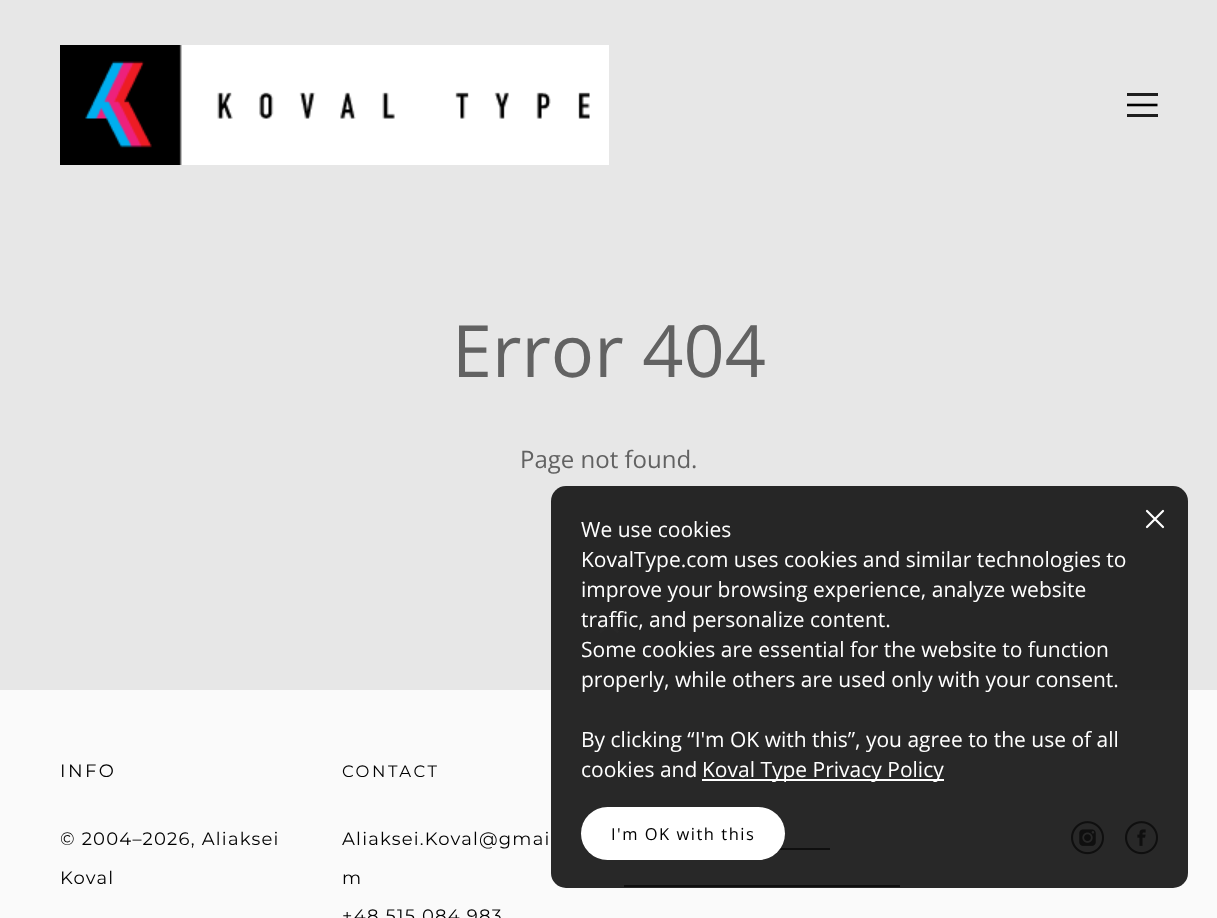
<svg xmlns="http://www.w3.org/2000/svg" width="1217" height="918">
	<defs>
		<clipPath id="clip1"><rect x="1127" y="93" width="31" height="30" /></clipPath>
	</defs>
	<rect width="100%" height="100%" fill="#E7E7E7" />
	<image x="60" y="45" width="549" height="120" href="assets/img1.png" />
	<rect x="1127" y="93" width="31" height="3" fill="#1F1F1F" />
	<g clip-path="url(#clip1)">
		<path d="M1126.5 105H1157.5" fill="none" stroke="#000000" stroke-width="2.6" />
	</g>
	<rect x="1127" y="114" width="31" height="3" fill="#1F1F1F" />
	<text x="452" y="377" font-family="Open Sans" font-size="72" fill="#626262">Error 404</text>
	<text x="520" y="468" font-family="Open Sans" font-size="24" fill="#626262">Page not found.</text>
	<path d="M619 631.5L617 633L609 625.5L601 633L599 631.5L609 622Z" fill="#FFFFFF" fill-rule="evenodd" />
	<rect x="0" y="690" width="1217" height="228" fill="#FAFAFA" />
	<text x="60" y="777" font-family="Montserrat" font-size="18" letter-spacing="2.5" fill="#000000">INFO</text>
	<g font-family="Montserrat" font-size="18" letter-spacing="1.2" fill="#000000">
		<text x="60" y="845">© 2004–2026, Aliaksei</text>
		<text x="60" y="884">Koval</text>
	</g>
	<text x="342" y="777" font-family="Montserrat" font-size="16.5" letter-spacing="2.5" fill="#000000">CONTACT</text>
	<g font-family="Montserrat" font-size="18" letter-spacing="1.2" fill="#000000">
		<text x="342" y="845">Aliaksei.Koval@gmai</text>
		<text x="342" y="884">m</text>
		<text x="342" y="922">+48 515 084 983</text>
	</g>
	<image x="1071" y="821" width="33" height="34" href="assets/img2.png" />
	<image x="1125" y="821" width="33" height="34" href="assets/img3.png" />
	<rect x="779" y="848" width="51" height="2" fill="#000000" />
	<rect x="624" y="885" width="276" height="2" fill="#000000" />
	<rect x="551" y="486" width="637" height="402" rx="15" fill="#111111" fill-opacity="0.9" />
	<path d="M1163 511L1147 527M1147 511L1163 527" fill="none" stroke="#FFFFFF" stroke-width="2.2" stroke-linecap="round" stroke-linejoin="round" />
	<g font-family="Open Sans" font-size="21" fill="#FFFFFF">
		<text x="581" y="537">We use cookies</text>
		<text x="581" y="567">KovalType.com uses cookies and similar technologies to</text>
		<text x="581" y="597">improve your browsing experience, analyze website</text>
		<text x="581" y="627">traffic, and personalize content.</text>
		<text x="581" y="657">Some cookies are essential for the website to function</text>
		<text x="581" y="687">properly, while others are used only with your consent.</text>
		<text x="581" y="747">By clicking “I'm OK with this”, you agree to the use of all</text>
		<text x="581" y="777">cookies and</text>
	</g>
	<rect x="702" y="779" width="242" height="2" fill="#FFFFFF" />
	<text x="702" y="777" font-family="Open Sans" font-size="21" fill="#FFFFFF">Koval Type Privacy Policy</text>
	<rect x="581" y="807" width="204" height="53" rx="26.5" fill="#FFFFFF" />
	<text x="611" y="840" font-family="Open Sans" font-size="16.5" letter-spacing="1.5" fill="#000000">I'm OK with this</text>
</svg>
